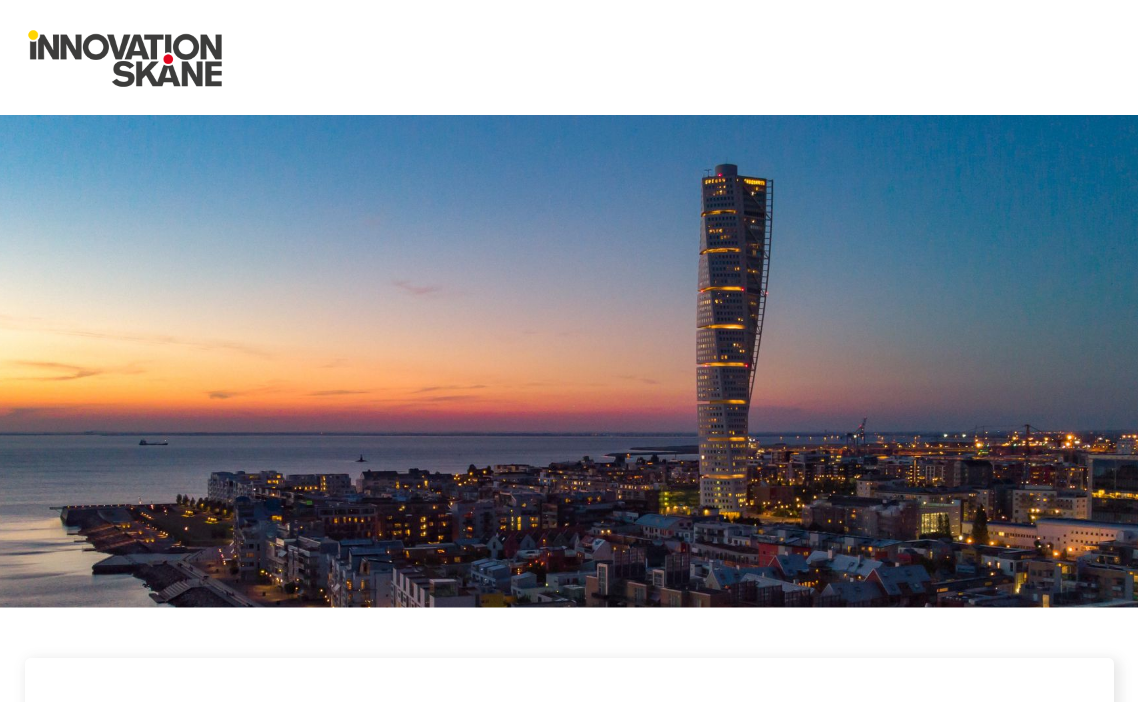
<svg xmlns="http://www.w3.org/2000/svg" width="1138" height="702">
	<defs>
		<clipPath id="clip1"><path d="M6 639H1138V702H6ZM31 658H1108C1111.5 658 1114 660.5 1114 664V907C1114 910.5 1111.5 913 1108 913H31C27.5 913 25 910.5 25 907V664C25 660.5 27.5 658 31 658Z" clip-rule="evenodd" /></clipPath>
	</defs>
	<rect width="100%" height="100%" fill="#FFFFFF" />
	<image x="28" y="30" width="194" height="57" href="assets/img1.png" />
	<image x="0" y="115" width="1138" height="493" href="assets/img2.png" />
	<g clip-path="url(#clip1)">
		<rect x="25" y="658" width="1096" height="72" rx="10" fill="#303234" fill-opacity="0.1" filter="blur(6px)" />
	</g>
</svg>
